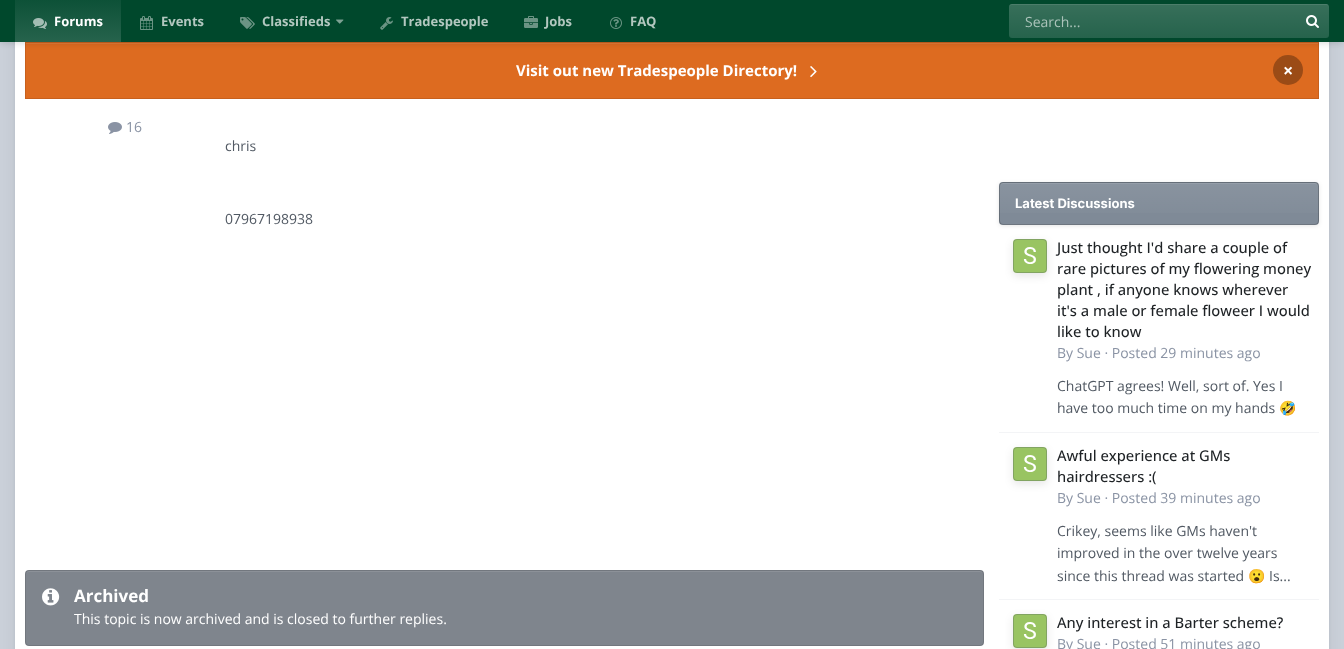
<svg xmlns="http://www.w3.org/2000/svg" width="1344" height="649">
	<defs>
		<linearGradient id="g1" gradientUnits="userSpaceOnUse" x1="68" y1="0" x2="68" y2="42"><stop offset="0" stop-color="#0D5137" /><stop offset="1" stop-color="#26634C" /></linearGradient>
		<linearGradient id="g2" gradientUnits="userSpaceOnUse" x1="1169" y1="4" x2="1169" y2="38"><stop offset="0" stop-color="#FFFFFF" stop-opacity="0.08" /><stop offset="1" stop-color="#FFFFFF" stop-opacity="0" /></linearGradient>
		<linearGradient id="g3" gradientUnits="userSpaceOnUse" x1="1159" y1="183" x2="1159" y2="224"><stop offset="0" stop-color="#FFFFFF" stop-opacity="0.08" /><stop offset="1" stop-color="#FFFFFF" stop-opacity="0" /></linearGradient>
		<clipPath id="clip1"><rect x="999" y="182" width="320" height="43" rx="4" /></clipPath>
		<linearGradient id="g4" gradientUnits="userSpaceOnUse" x1="1159" y1="224" x2="1159" y2="265"><stop offset="0" stop-color="#FFFFFF" stop-opacity="0.08" /><stop offset="1" stop-color="#FFFFFF" stop-opacity="0" /></linearGradient>
		<clipPath id="clip2"><path d="M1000 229H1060V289H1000ZM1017 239H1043C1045 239 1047 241 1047 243V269C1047 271 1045 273 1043 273H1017C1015 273 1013 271 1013 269V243C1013 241 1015 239 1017 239Z" clip-rule="evenodd" /></clipPath>
		<clipPath id="clip3"><path d="M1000 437H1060V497H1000ZM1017 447H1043C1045 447 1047 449 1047 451V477C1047 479 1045 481 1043 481H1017C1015 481 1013 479 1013 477V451C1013 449 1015 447 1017 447Z" clip-rule="evenodd" /></clipPath>
		<clipPath id="clip4"><path d="M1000 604H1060V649H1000ZM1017 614H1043C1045 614 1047 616 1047 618V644C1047 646 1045 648 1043 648H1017C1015 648 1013 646 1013 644V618C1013 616 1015 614 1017 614Z" clip-rule="evenodd" /></clipPath>
	</defs>
	<rect width="100%" height="100%" fill="#CBD1DA" />
	<rect x="15" y="-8" width="1314" height="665" rx="3" fill="#000000" fill-opacity="0.08" filter="blur(1.5px)" />
	<rect x="15" y="-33" width="1314" height="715" rx="3" fill="#000000" fill-opacity="0.06" filter="blur(10px)" />
	<rect x="15" y="42" width="1314" height="607" fill="#FFFFFF" />
	<rect x="26" y="44" width="1292" height="54" fill="#DD6B20" />
	<rect x="26" y="43" width="1292" height="1" fill="#E07A36" />
	<rect x="25.5" y="42.5" width="1293" height="56" fill="none" stroke="#C7601D" />
	<rect x="0" y="1" width="1344" height="42" fill="#000000" fill-opacity="0.15" filter="blur(3.5px)" />
	<rect x="0" y="0" width="1344" height="42" fill="#00482C" />
	<rect x="15" y="0" width="106" height="42" fill="url(#g1)" />
	<image x="33" y="18" width="14" height="11" href="assets/img1.png" />
	<text x="54" y="26" font-family="Open Sans" font-size="13" font-weight="700" fill="#FFFFFF">Forums</text>
	<image x="140" y="16" width="13" height="14" href="assets/img2.png" />
	<text x="161" y="26" font-family="Open Sans" font-size="13" font-weight="700" fill="#B3C8C0">Events</text>
	<image x="240" y="17" width="15" height="12" href="assets/img3.png" />
	<text x="262" y="26" font-family="Open Sans" font-size="13" font-weight="700" fill="#B3C8C0">Classifieds</text>
	<image x="336" y="19" width="8" height="5" href="assets/img4.png" />
	<image x="380" y="17" width="13" height="13" href="assets/img5.png" />
	<text x="401" y="26" font-family="Open Sans" font-size="13" font-weight="700" fill="#B3C8C0">Tradespeople</text>
	<image x="524" y="16" width="14" height="12" href="assets/img6.png" />
	<text x="545" y="26" font-family="Open Sans" font-size="13" font-weight="700" fill="#B3C8C0">Jobs</text>
	<image x="610" y="17" width="12" height="12" href="assets/img7.png" />
	<text x="630" y="26" font-family="Open Sans" font-size="13" font-weight="700" fill="#B3C8C0">FAQ</text>
	<rect x="1009" y="4" width="320" height="34" rx="3" fill="#26634C" />
	<rect x="1009" y="4" width="320" height="34" rx="3" fill="url(#g2)" />
	<path d="M1012 5H1326C1328 5 1329 6 1329 8L1328 5L1327 4H1012C1010 4 1009 6 1009 8C1009 6 1010 5 1012 5Z" fill="#FFFFFF" fill-opacity="0.1" />
	<text x="1025" y="27" font-family="Open Sans" font-size="14" fill="#ABC3BA">Search...</text>
	<image x="1306" y="15" width="13" height="13" href="assets/img8.png" />
	<text x="516" y="76" font-family="Open Sans" font-size="15" font-weight="700" fill="#FFFFFF">Visit out new Tradespeople Directory!</text>
	<image x="810" y="66" width="7" height="12" href="assets/img9.png" />
	<circle cx="1288" cy="70" r="15" fill="#9B4B16" />
	<text x="1283" y="77" font-family="Open Sans" font-size="18" font-weight="700" fill="#FFFFFF">×</text>
	<image x="108" y="122" width="14" height="12" href="assets/img10.png" />
	<text x="126" y="132" font-family="Open Sans" font-size="14" fill="#8A93A4">16</text>
	<g font-family="Open Sans" font-size="14" fill="#515963">
		<text x="225" y="151">chris</text>
		<text x="225" y="224">07967198938</text>
	</g>
	<rect x="25" y="570" width="959" height="76" rx="4" fill="#7F858D" />
	<path d="M29 572H980C982 572 983 573 983 575C983 573 982 571 980 571H29C27 571 26 573 26 575C26 573 27 572 29 572Z" fill="#8C9198" />
	<rect x="25.5" y="570.5" width="958" height="75" rx="3.5" fill="none" stroke="#000000" stroke-opacity="0.1" />
	<image x="42" y="588" width="18" height="18" href="assets/img11.png" />
	<text x="74" y="602" font-family="Open Sans" font-size="17" font-weight="700" fill="#FFFFFF">Archived</text>
	<text x="74" y="624" font-family="Open Sans" font-size="14" fill="#FFFFFF">This topic is now archived and is closed to further replies.</text>
	<rect x="999" y="183" width="320" height="43" rx="4" fill="#000000" fill-opacity="0.1" filter="blur(2px)" />
	<rect x="999" y="182" width="320" height="43" rx="4" fill="#7F8A97" />
	<rect x="999" y="183" width="320" height="30" fill="url(#g3)" />
	<g clip-path="url(#clip1)">
		<rect x="999" y="224" width="320" height="1" fill="url(#g4)" />
	</g>
	<path d="M1003 184H1315C1317 184 1318 185 1318 187L1317 184L1316 183H1003C1001 183 1000 185 1000 187C1000 185 1001 184 1003 184Z" fill="#959EA9" />
	<rect x="999.5" y="182.5" width="319" height="42" rx="3.5" fill="none" stroke="#000000" stroke-opacity="0.2" />
	<text x="1015" y="208" font-family="Inter" font-size="13" font-weight="700" fill="#FFFFFF">Latest Discussions</text>
	<rect x="999" y="432" width="320" height="1" fill="#F3F4F6" />
	<image x="1013" y="239" width="34" height="34" href="assets/img12.png" />
	<g clip-path="url(#clip2)">
		<rect x="1013" y="242" width="34" height="34" rx="4" fill="#000000" fill-opacity="0.1" filter="blur(4px)" />
	</g>
	<rect x="1013.5" y="239.5" width="33" height="33" rx="3.5" fill="none" stroke="#515963" stroke-opacity="0.3" />
	<g font-family="Open Sans" font-size="14.75" font-weight="500" fill="#1E2225">
		<text x="1057" y="253">Just thought I'd share a couple of</text>
		<text x="1057" y="274">rare pictures of my flowering money</text>
		<text x="1057" y="295">plant , if anyone knows wherever</text>
		<text x="1057" y="316">it's a male or female floweer I would</text>
		<text x="1057" y="337">like to know</text>
	</g>
	<text x="1057" y="358" font-family="Open Sans" font-size="14" fill="#8A93A4">By Sue · Posted 29 minutes ago</text>
	<g font-family="Open Sans" font-size="14" fill="#515963">
		<text x="1057" y="391">ChatGPT agrees! Well, sort of. Yes I</text>
		<text x="1057" y="413">have too much time on my hands</text>
	</g>
	<text x="1279" y="413" font-family="Noto Color Emoji" font-size="14" fill="#515963">🤣</text>
	<rect x="999" y="599" width="320" height="1" fill="#F3F4F6" />
	<image x="1013" y="447" width="34" height="34" href="assets/img12.png" />
	<g clip-path="url(#clip3)">
		<rect x="1013" y="450" width="34" height="34" rx="4" fill="#000000" fill-opacity="0.1" filter="blur(4px)" />
	</g>
	<rect x="1013.5" y="447.5" width="33" height="33" rx="3.5" fill="none" stroke="#515963" stroke-opacity="0.3" />
	<g font-family="Open Sans" font-size="14.75" font-weight="500" fill="#1E2225">
		<text x="1057" y="461">Awful experience at GMs</text>
		<text x="1057" y="482">hairdressers :(</text>
	</g>
	<text x="1057" y="503" font-family="Open Sans" font-size="14" fill="#8A93A4">By Sue · Posted 39 minutes ago</text>
	<g font-family="Open Sans" font-size="14" fill="#515963">
		<text x="1057" y="536">Crikey, seems like GMs haven't</text>
		<text x="1057" y="558">improved in the over twelve years</text>
		<text x="1057" y="581">since this thread was started</text>
	</g>
	<text x="1248" y="581" font-family="Noto Color Emoji" font-size="14" fill="#515963">😮</text>
	<text x="1269" y="581" font-family="Open Sans" font-size="14" fill="#515963">Is...</text>
	<image x="1013" y="614" width="34" height="34" href="assets/img12.png" />
	<g clip-path="url(#clip4)">
		<rect x="1013" y="617" width="34" height="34" rx="4" fill="#000000" fill-opacity="0.1" filter="blur(4px)" />
	</g>
	<rect x="1013.5" y="614.5" width="33" height="33" rx="3.5" fill="none" stroke="#515963" stroke-opacity="0.3" />
	<text x="1057" y="628" font-family="Open Sans" font-size="14.75" font-weight="500" fill="#1E2225">Any interest in a Barter scheme?</text>
	<text x="1057" y="649" font-family="Open Sans" font-size="14" fill="#8A93A4">By Sue · Posted 51 minutes ago</text>
</svg>
